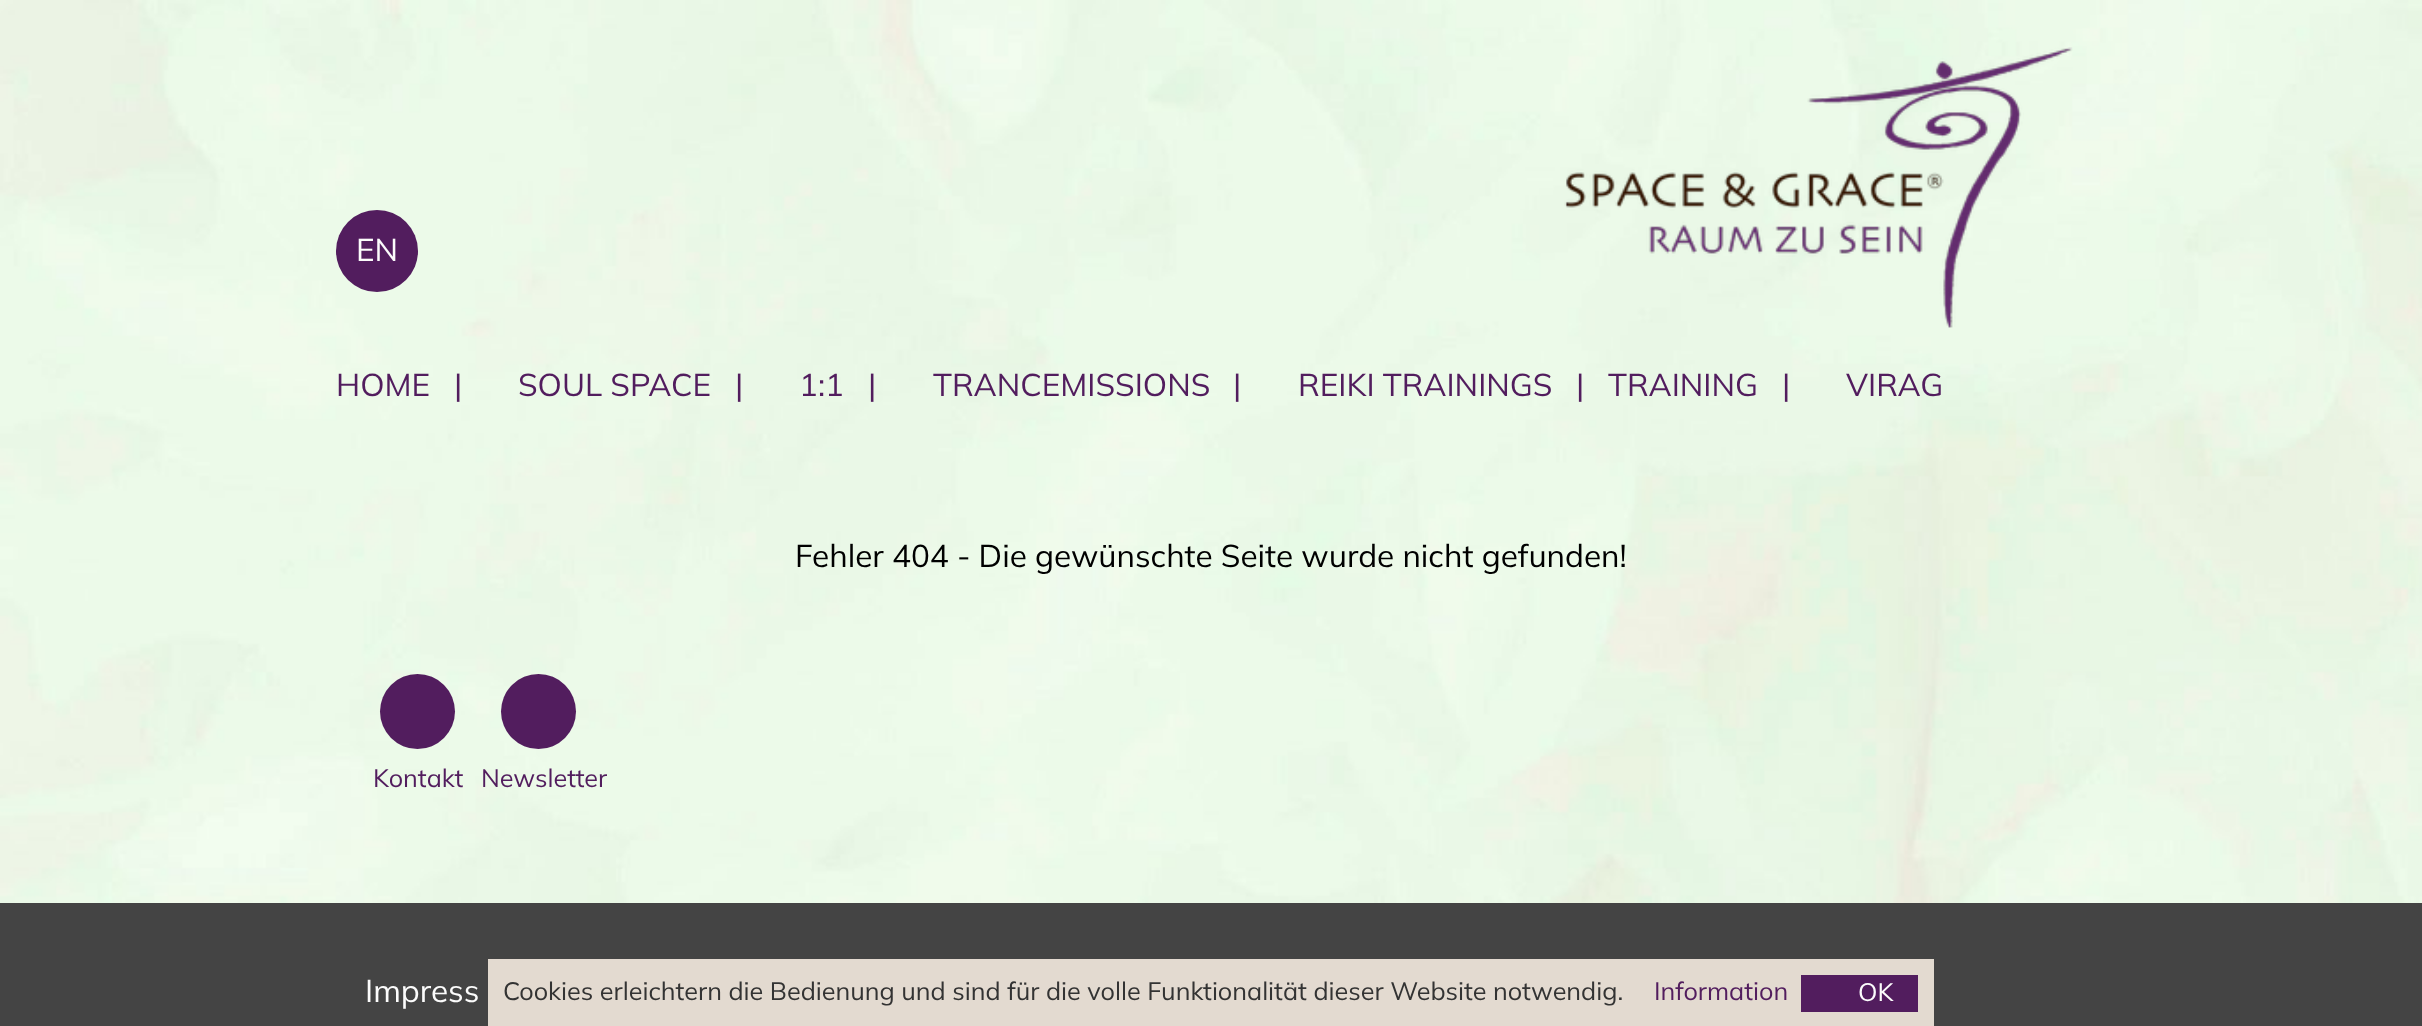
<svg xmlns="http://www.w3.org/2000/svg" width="2422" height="1026">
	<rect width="100%" height="100%" fill="#FFFFFF" />
	<image x="0" y="0" width="2422" height="903" href="assets/img1.png" />
	<circle cx="377" cy="251" r="41" fill="#521D5E" />
	<text x="356" y="261" font-family="Mulish" font-size="31.5" fill="#FCFCFC">EN</text>
	<image x="1564" y="47" width="509" height="281" href="assets/img2.png" />
	<g font-family="Mulish" font-size="31.5" fill="#521D5E">
		<text x="336" y="396">HOME</text>
		<text x="454" y="396">|</text>
		<text x="518" y="396">SOUL SPACE</text>
		<text x="735" y="396">|</text>
		<text x="799" y="396">1:1</text>
		<text x="868" y="396">|</text>
		<text x="933" y="396">TRANCEMISSIONS</text>
		<text x="1233" y="396">|</text>
		<text x="1298" y="396">REIKI TRAININGS</text>
		<text x="1576" y="396">|</text>
		<text x="1608" y="396">TRAINING</text>
		<text x="1782" y="396">|</text>
		<text x="1846" y="396">VIRAG</text>
	</g>
	<text x="795" y="567" font-family="Mulish" font-size="31.5" fill="#000000">Fehler 404 - Die gewünschte Seite wurde nicht gefunden!</text>
	<circle cx="417.5" cy="711.5" r="37.5" fill="#521D5E" />
	<text x="373" y="787" font-family="Mulish" font-size="25.2" fill="#521D5E">Kontakt</text>
	<circle cx="538.5" cy="711.5" r="37.5" fill="#521D5E" />
	<text x="481" y="787" font-family="Mulish" font-size="25.2" fill="#521D5E">Newsletter</text>
	<rect x="0" y="903" width="2422" height="123" fill="#444444" />
	<text x="365" y="1002" font-family="Mulish" font-size="31.5" fill="#FCFCFC">Impress</text>
	<rect x="488" y="959" width="1446" height="67" fill="#FFF5E9" fill-opacity="0.85" />
	<text x="503" y="1000" font-family="Mulish" font-size="25.2" fill="#333333">Cookies erleichtern die Bedienung und sind für die volle Funktionalität dieser Website notwendig.</text>
	<text x="1654" y="1000" font-family="Mulish" font-size="25.2" fill="#521D5E">Information</text>
	<rect x="1801" y="975" width="117" height="37" fill="#521D5E" />
	<text x="1858" y="1001" font-family="Mulish" font-size="25.2" fill="#FCFCFC">OK</text>
</svg>
